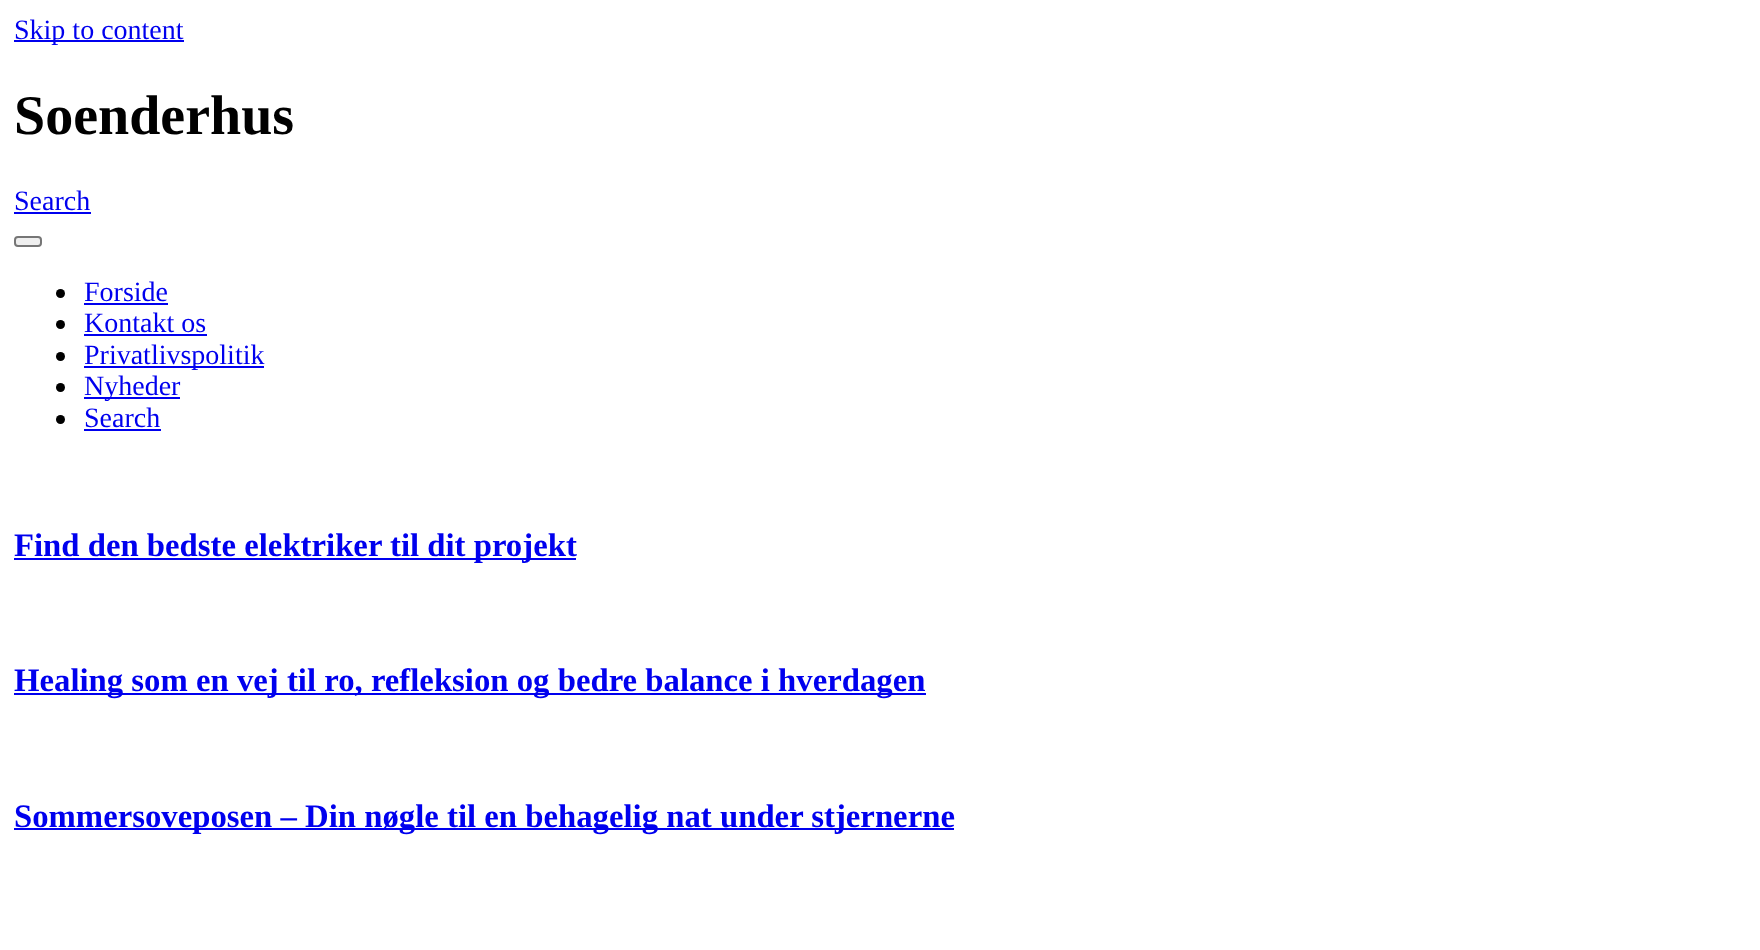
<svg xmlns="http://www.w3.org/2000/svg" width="1760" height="950">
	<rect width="100%" height="100%" fill="#FFFFFF" />
	<rect x="14" y="40" width="170" height="2" fill="#0000EE" />
	<text x="14" y="39" font-family="Liberation Serif" font-size="28" fill="#0000EE">Skip to content</text>
	<text x="14" y="134" font-family="Liberation Serif" font-size="56" font-weight="700" fill="#000000">Soenderhus</text>
	<text x="14" y="210" font-family="Liberation Serif" font-size="28" fill="#0000EE">Search</text>
	<rect x="14" y="212" width="77" height="2" fill="#0000EE" />
	<rect x="15" y="237" width="26" height="9" rx="3" fill="#EFEFEF" stroke="#767676" stroke-width="2" />
	<circle cx="60.5" cy="293.5" r="4.5" fill="#000000" />
	<text x="84" y="301" font-family="Liberation Serif" font-size="28" fill="#0000EE">Forside</text>
	<rect x="84" y="303" width="84" height="2" fill="#0000EE" />
	<circle cx="60.5" cy="324.5" r="4.5" fill="#000000" />
	<text x="84" y="332" font-family="Liberation Serif" font-size="28" fill="#0000EE">Kontakt os</text>
	<rect x="84" y="334" width="123" height="2" fill="#0000EE" />
	<circle cx="60.5" cy="356.5" r="4.5" fill="#000000" />
	<rect x="84" y="366" width="180" height="2" fill="#0000EE" />
	<text x="84" y="364" font-family="Liberation Serif" font-size="28" fill="#0000EE">Privatlivspolitik</text>
	<circle cx="60.5" cy="387.5" r="4.5" fill="#000000" />
	<rect x="84" y="397" width="96" height="2" fill="#0000EE" />
	<text x="84" y="395" font-family="Liberation Serif" font-size="28" fill="#0000EE">Nyheder</text>
	<circle cx="60.5" cy="419.5" r="4.5" fill="#000000" />
	<text x="84" y="427" font-family="Liberation Serif" font-size="28" fill="#0000EE">Search</text>
	<rect x="84" y="429" width="77" height="2" fill="#0000EE" />
	<rect x="14" y="558" width="562" height="2" fill="#0000EE" />
	<text x="14" y="556" font-family="Liberation Serif" font-size="32.75" font-weight="700" fill="#0000EE">Find den bedste elektriker til dit projekt</text>
	<rect x="14" y="693" width="912" height="2" fill="#0000EE" />
	<text x="14" y="691" font-family="Liberation Serif" font-size="32.75" font-weight="700" fill="#0000EE">Healing som en vej til ro, refleksion og bedre balance i hverdagen</text>
	<rect x="14" y="828" width="940" height="2" fill="#0000EE" />
	<text x="14" y="827" font-family="Liberation Serif" font-size="32.75" font-weight="700" fill="#0000EE">Sommersoveposen – Din nøgle til en behagelig nat under stjernerne</text>
</svg>
